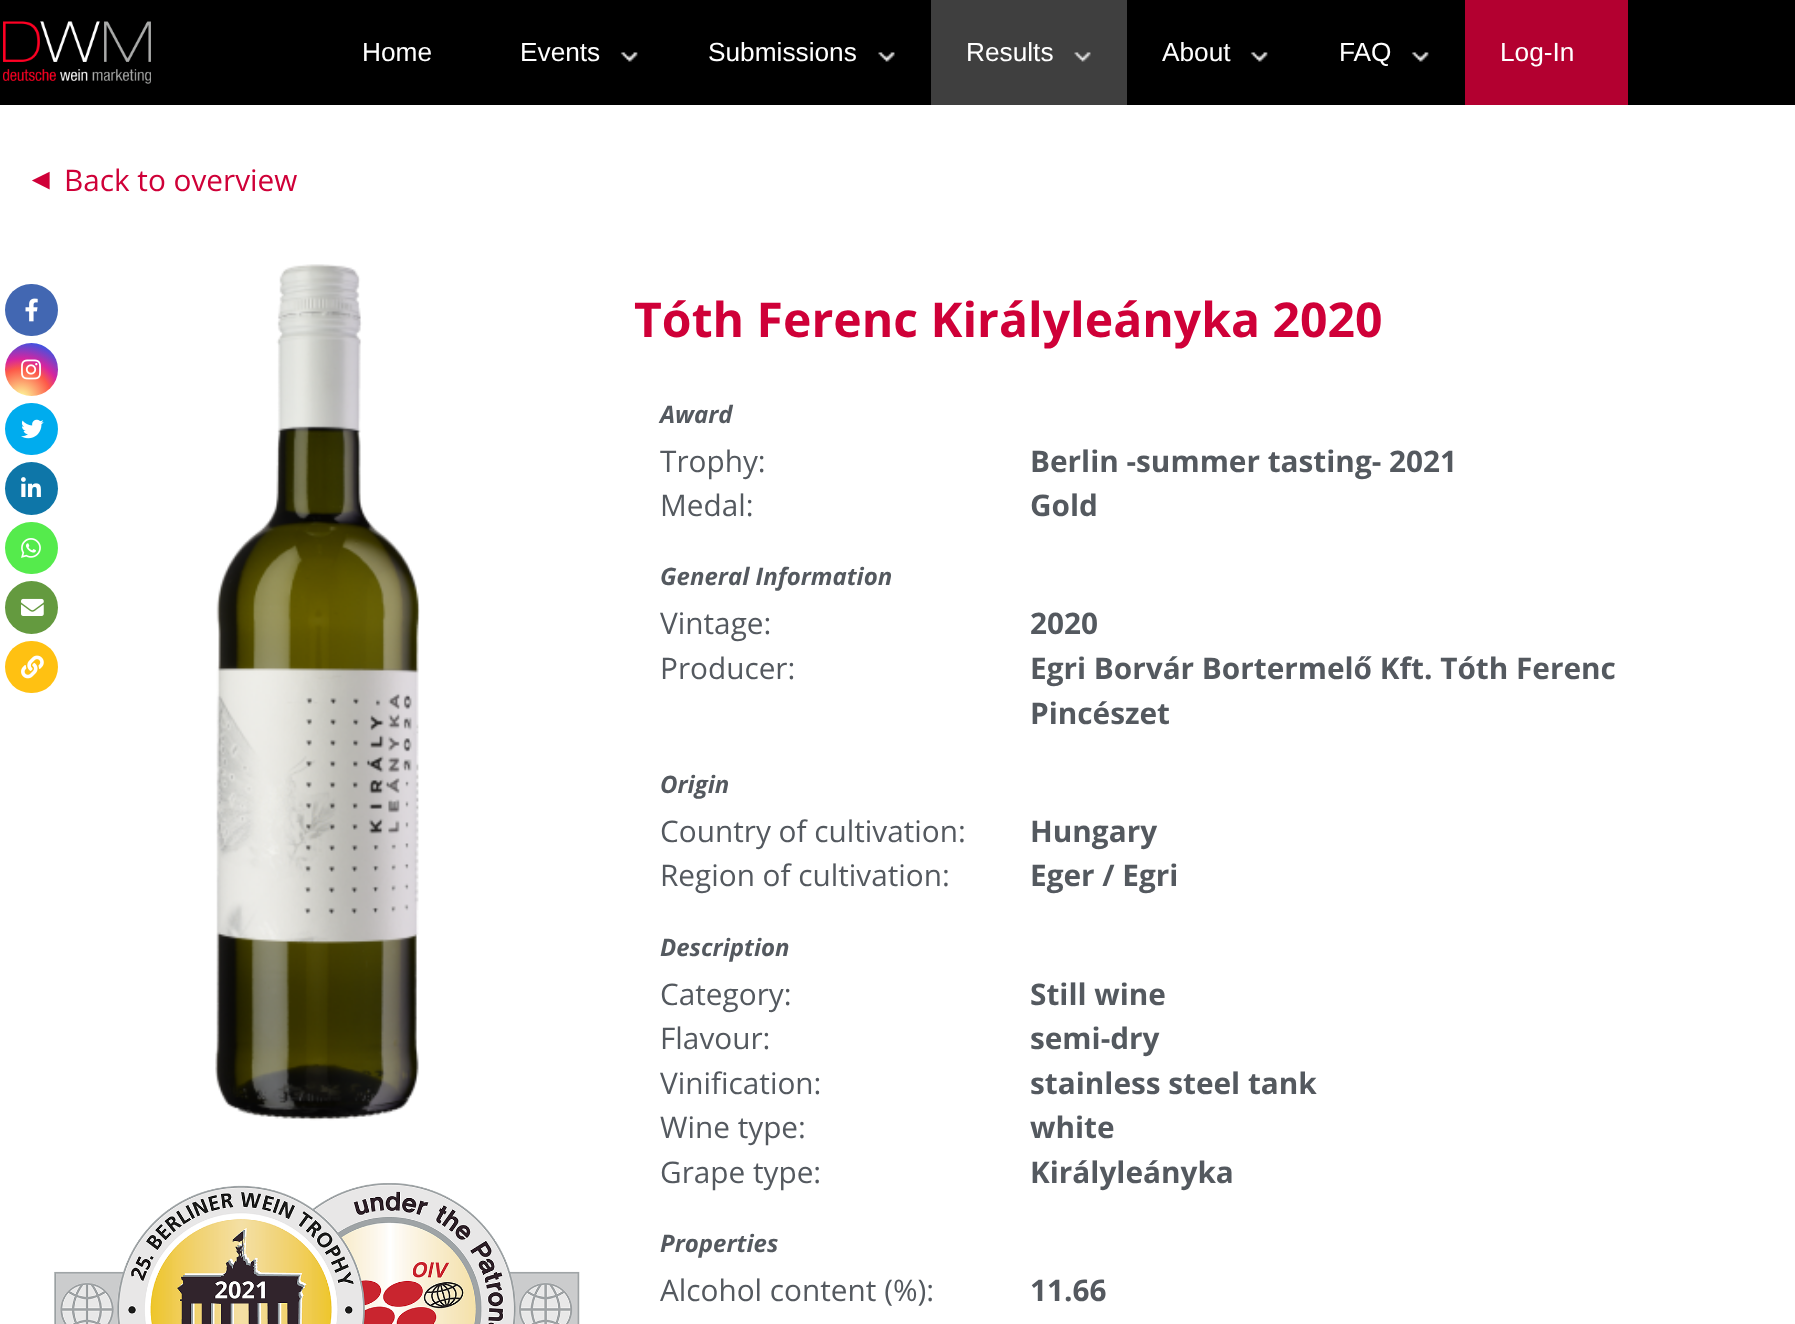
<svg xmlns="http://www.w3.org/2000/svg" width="1795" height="1324">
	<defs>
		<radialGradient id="g1" gradientUnits="userSpaceOnUse" cx="21" cy="399" r="67"><stop offset="0" stop-color="#FDF497" /><stop offset="0.05" stop-color="#FDF497" /><stop offset="0.45" stop-color="#FD5949" /><stop offset="0.6" stop-color="#D6249F" /><stop offset="0.9" stop-color="#285AEB" /></radialGradient>
	</defs>
	<rect width="100%" height="100%" fill="#FFFFFF" />
	<rect x="0" y="0" width="1795" height="105" fill="#000000" />
	<image x="3" y="21" width="148" height="63" href="assets/img1.png" />
	<g font-family="Liberation Sans" font-size="26.25" fill="#FFFFFF">
		<text x="362" y="61">Home</text>
		<text x="520" y="61">Events</text>
	</g>
	<image x="620" y="52" width="18" height="10" href="assets/img2.png" />
	<text x="708" y="61" font-family="Liberation Sans" font-size="26.25" fill="#FFFFFF">Submissions</text>
	<image x="878" y="52" width="17" height="10" href="assets/img3.png" />
	<rect x="931" y="0" width="196" height="105" fill="#3F3F3F" />
	<text x="966" y="61" font-family="Liberation Sans" font-size="26.25" fill="#FFFFFF">Results</text>
	<image x="1074" y="52" width="17" height="10" href="assets/img4.png" />
	<text x="1162" y="61" font-family="Liberation Sans" font-size="26.25" fill="#FFFFFF">About</text>
	<image x="1250" y="52" width="18" height="10" href="assets/img2.png" />
	<text x="1339" y="61" font-family="Liberation Sans" font-size="26.25" fill="#FFFFFF">FAQ</text>
	<image x="1411" y="52" width="18" height="10" href="assets/img5.png" />
	<rect x="1465" y="0" width="163" height="105" fill="#B30030" />
	<text x="1500" y="61" font-family="Liberation Sans" font-size="26.25" fill="#FFFFFF">Log-In</text>
	<rect x="5" y="284" width="53" height="52" rx="26" fill="#4267B2" />
	<image x="25" y="298" width="13" height="24" href="assets/img6.png" />
	<circle cx="31.5" cy="369.5" r="26.5" fill="url(#g1)" />
	<image x="21" y="359" width="20" height="21" href="assets/img7.png" />
	<rect x="5" y="403" width="53" height="52" rx="26" fill="#00ACEE" />
	<image x="21" y="419" width="23" height="20" href="assets/img8.png" />
	<circle cx="31.5" cy="488.5" r="26.5" fill="#0E76A8" />
	<image x="21" y="477" width="20" height="20" href="assets/img9.png" />
	<rect x="5" y="522" width="53" height="52" rx="26" fill="#55EB4C" />
	<image x="21" y="538" width="20" height="20" href="assets/img10.png" />
	<circle cx="31.5" cy="607.5" r="26.5" fill="#649A3F" />
	<image x="21" y="598" width="23" height="18" href="assets/img11.png" />
	<rect x="5" y="641" width="53" height="52" rx="26" fill="#FFC112" />
	<image x="21" y="655" width="23" height="24" href="assets/img12.png" />
	<text x="26" y="189" font-family="Liberation Sans" font-size="29.75" fill="#CF0038">◄</text>
	<text x="64" y="191" font-family="Open Sans" font-size="29.75" fill="#CF0038">Back to overview</text>
	<image x="215" y="264" width="205" height="857" href="assets/img13.png" />
	<image x="54" y="1183" width="526" height="141" href="assets/img14.png" />
	<text x="634" y="337" font-family="Open Sans" font-size="48.1" font-weight="700" fill="#CF0038">Tóth Ferenc Királyleányka 2020</text>
	<text x="660" y="423" font-family="Open Sans" font-size="24" font-weight="700" font-style="italic" fill="#54595F">Award</text>
	<text x="660" y="472" font-family="Open Sans" font-size="29.75" fill="#54595F">Trophy:</text>
	<text x="1030" y="472" font-family="Open Sans" font-size="29.75" font-weight="700" fill="#54595F">Berlin -summer tasting- 2021</text>
	<text x="660" y="516" font-family="Open Sans" font-size="29.75" fill="#54595F">Medal:</text>
	<text x="1030" y="516" font-family="Open Sans" font-size="29.75" font-weight="700" fill="#54595F">Gold</text>
	<text x="660" y="585" font-family="Open Sans" font-size="24" font-weight="700" font-style="italic" fill="#54595F">General Information</text>
	<text x="660" y="634" font-family="Open Sans" font-size="29.75" fill="#54595F">Vintage:</text>
	<text x="1030" y="634" font-family="Open Sans" font-size="29.75" font-weight="700" fill="#54595F">2020</text>
	<text x="660" y="679" font-family="Open Sans" font-size="29.75" fill="#54595F">Producer:</text>
	<g font-family="Open Sans" font-size="29.75" font-weight="700" fill="#54595F">
		<text x="1030" y="679">Egri Borvár Bortermelő Kft. Tóth Ferenc</text>
		<text x="1030" y="724">Pincészet</text>
	</g>
	<text x="660" y="793" font-family="Open Sans" font-size="24" font-weight="700" font-style="italic" fill="#54595F">Origin</text>
	<text x="660" y="842" font-family="Open Sans" font-size="29.75" fill="#54595F">Country of cultivation:</text>
	<text x="1030" y="842" font-family="Open Sans" font-size="29.75" font-weight="700" fill="#54595F">Hungary</text>
	<text x="660" y="886" font-family="Open Sans" font-size="29.75" fill="#54595F">Region of cultivation:</text>
	<text x="1030" y="886" font-family="Open Sans" font-size="29.75" font-weight="700" fill="#54595F">Eger / Egri</text>
	<text x="660" y="956" font-family="Open Sans" font-size="24" font-weight="700" font-style="italic" fill="#54595F">Description</text>
	<text x="660" y="1005" font-family="Open Sans" font-size="29.75" fill="#54595F">Category:</text>
	<text x="1030" y="1005" font-family="Open Sans" font-size="29.75" font-weight="700" fill="#54595F">Still wine</text>
	<text x="660" y="1049" font-family="Open Sans" font-size="29.75" fill="#54595F">Flavour:</text>
	<text x="1030" y="1049" font-family="Open Sans" font-size="29.75" font-weight="700" fill="#54595F">semi-dry</text>
	<text x="660" y="1094" font-family="Open Sans" font-size="29.75" fill="#54595F">Vinification:</text>
	<text x="1030" y="1094" font-family="Open Sans" font-size="29.75" font-weight="700" fill="#54595F">stainless steel tank</text>
	<text x="660" y="1138" font-family="Open Sans" font-size="29.75" fill="#54595F">Wine type:</text>
	<text x="1030" y="1138" font-family="Open Sans" font-size="29.75" font-weight="700" fill="#54595F">white</text>
	<text x="660" y="1183" font-family="Open Sans" font-size="29.75" fill="#54595F">Grape type:</text>
	<text x="1030" y="1183" font-family="Open Sans" font-size="29.75" font-weight="700" fill="#54595F">Királyleányka</text>
	<text x="660" y="1252" font-family="Open Sans" font-size="24" font-weight="700" font-style="italic" fill="#54595F">Properties</text>
	<text x="660" y="1301" font-family="Open Sans" font-size="29.75" fill="#54595F">Alcohol content (%):</text>
	<text x="1030" y="1301" font-family="Open Sans" font-size="29.75" font-weight="700" fill="#54595F">11.66</text>
</svg>
